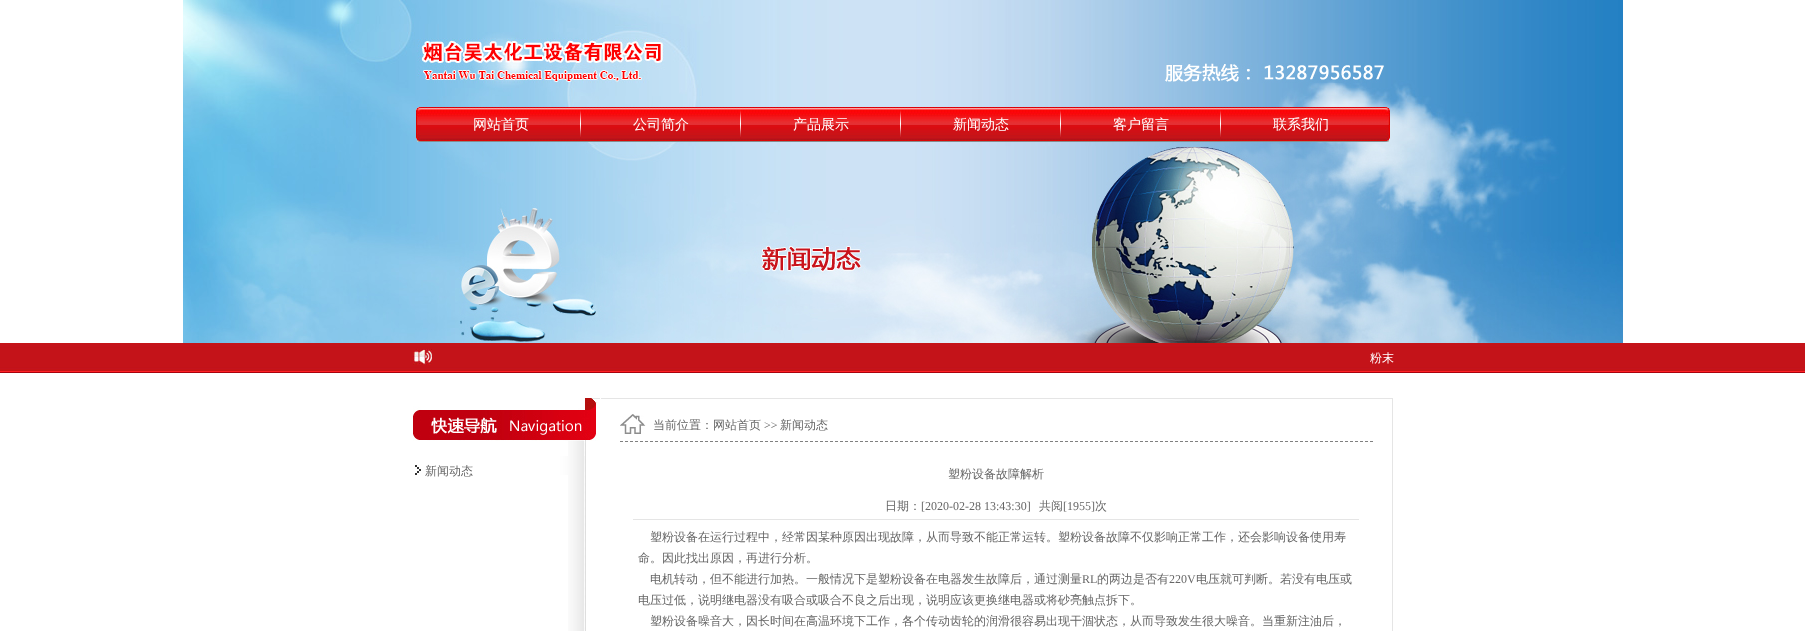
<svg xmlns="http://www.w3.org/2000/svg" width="1805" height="631">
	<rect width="100%" height="100%" fill="#FFFFFF" />
	<image x="183" y="0" width="1440" height="343" href="assets/img1.png" />
	<image x="417" y="38" width="278" height="45" href="assets/img2.png" />
	<image x="1165" y="63" width="219" height="20" href="assets/img3.png" />
	<image x="421" y="107" width="964" height="35" href="assets/img4.png" />
	<image x="416" y="107" width="5" height="35" href="assets/img5.png" />
	<image x="580" y="107" width="1" height="34" href="assets/img6.png" />
	<text x="473" y="129" font-family="WenQuanYi Zen Hei" font-size="14" font-weight="500" fill="#FFFFFF">网站首页</text>
	<image x="740" y="107" width="1" height="35" href="assets/img7.png" />
	<text x="633" y="129" font-family="WenQuanYi Zen Hei" font-size="14" font-weight="500" fill="#FFFFFF">公司简介</text>
	<image x="900" y="107" width="1" height="35" href="assets/img7.png" />
	<text x="793" y="129" font-family="WenQuanYi Zen Hei" font-size="14" font-weight="500" fill="#FFFFFF">产品展示</text>
	<image x="1060" y="107" width="1" height="34" href="assets/img6.png" />
	<text x="953" y="129" font-family="WenQuanYi Zen Hei" font-size="14" font-weight="500" fill="#FFFFFF">新闻动态</text>
	<image x="1220" y="107" width="1" height="35" href="assets/img7.png" />
	<g font-family="WenQuanYi Zen Hei" font-size="14" font-weight="500" fill="#FFFFFF">
		<text x="1113" y="129">客户留言</text>
		<text x="1273" y="129">联系我们</text>
	</g>
	<image x="1385" y="107" width="5" height="35" href="assets/img8.png" />
	<image x="459" y="146" width="945" height="197" href="assets/img9.png" />
	<image x="0" y="343" width="1805" height="30" href="assets/img10.png" />
	<image x="413" y="349" width="19" height="16" href="assets/img11.png" />
	<text x="1370" y="362" font-family="WenQuanYi Zen Hei" font-size="12" font-weight="500" fill="#FFFFFF">粉末</text>
	<image x="568" y="441" width="18" height="190" href="assets/img12.png" />
	<image x="413" y="398" width="187" height="43" href="assets/img13.png" />
	<image x="415" y="456" width="170" height="19" href="assets/img14.png" />
	<text x="425" y="475" font-family="WenQuanYi Zen Hei" font-size="12" font-weight="500" fill="#666666">新闻动态</text>
	<rect x="601" y="398" width="792" height="1" fill="#E5E5E5" />
	<rect x="1392" y="398" width="1" height="233" fill="#E5E5E5" />
	<path d="M620 441.5H1373" fill="none" stroke="#808080" stroke-dasharray="3 2" />
	<image x="620" y="414" width="26" height="20" href="assets/img15.png" />
	<text x="653" y="429" font-family="WenQuanYi Zen Hei" font-size="12" font-weight="500" fill="#666666">当前位置：网站首页</text>
	<text x="764" y="429" font-family="Liberation Serif" font-size="12" fill="#666666">&gt;&gt;</text>
	<g font-family="WenQuanYi Zen Hei" font-size="12" font-weight="500" fill="#666666">
		<text x="780" y="429">新闻动态</text>
		<text x="948" y="478">塑粉设备故障解析</text>
		<text x="885" y="510">日期：</text>
	</g>
	<text x="921" y="510" font-family="Liberation Serif" font-size="12" fill="#666666">[2020-02-28 13:43:30]</text>
	<text x="1039" y="510" font-family="WenQuanYi Zen Hei" font-size="12" font-weight="500" fill="#666666">共阅</text>
	<text x="1063" y="510" font-family="Liberation Serif" font-size="12" fill="#666666">[1955]</text>
	<text x="1095" y="510" font-family="WenQuanYi Zen Hei" font-size="12" font-weight="500" fill="#666666">次</text>
	<rect x="633" y="519" width="726" height="1" fill="#E5E5E5" />
	<g font-family="WenQuanYi Zen Hei" font-size="12" font-weight="500" fill="#666666">
		<text x="650" y="541">塑粉设备在运行过程中，经常因某种原因出现故障，从而导致不能正常运转。塑粉设备故障不仅影响正常工作，还会影响设备使用寿</text>
		<text x="638" y="562">命。因此找出原因，再进行分析。</text>
		<text x="650" y="583">电机转动，但不能进行加热。一般情况下是塑粉设备在电器发生故障后，通过测量</text>
	</g>
	<text x="1082" y="583" font-family="Liberation Serif" font-size="12" fill="#666666">RL</text>
	<text x="1097" y="583" font-family="WenQuanYi Zen Hei" font-size="12" font-weight="500" fill="#666666">的两边是否有</text>
	<text x="1169" y="583" font-family="Liberation Serif" font-size="12" fill="#666666">220V</text>
	<g font-family="WenQuanYi Zen Hei" font-size="12" font-weight="500" fill="#666666">
		<text x="1196" y="583">电压就可判断。若没有电压或</text>
		<text x="638" y="604">电压过低，说明继电器没有吸合或吸合不良之后出现，说明应该更换继电器或将砂亮触点拆下。</text>
		<text x="650" y="625">塑粉设备噪音大，因长时间在高温环境下工作，各个传动齿轮的润滑很容易出现干涸状态，从而导致发生很大噪音。当重新注油后，</text>
	</g>
</svg>
